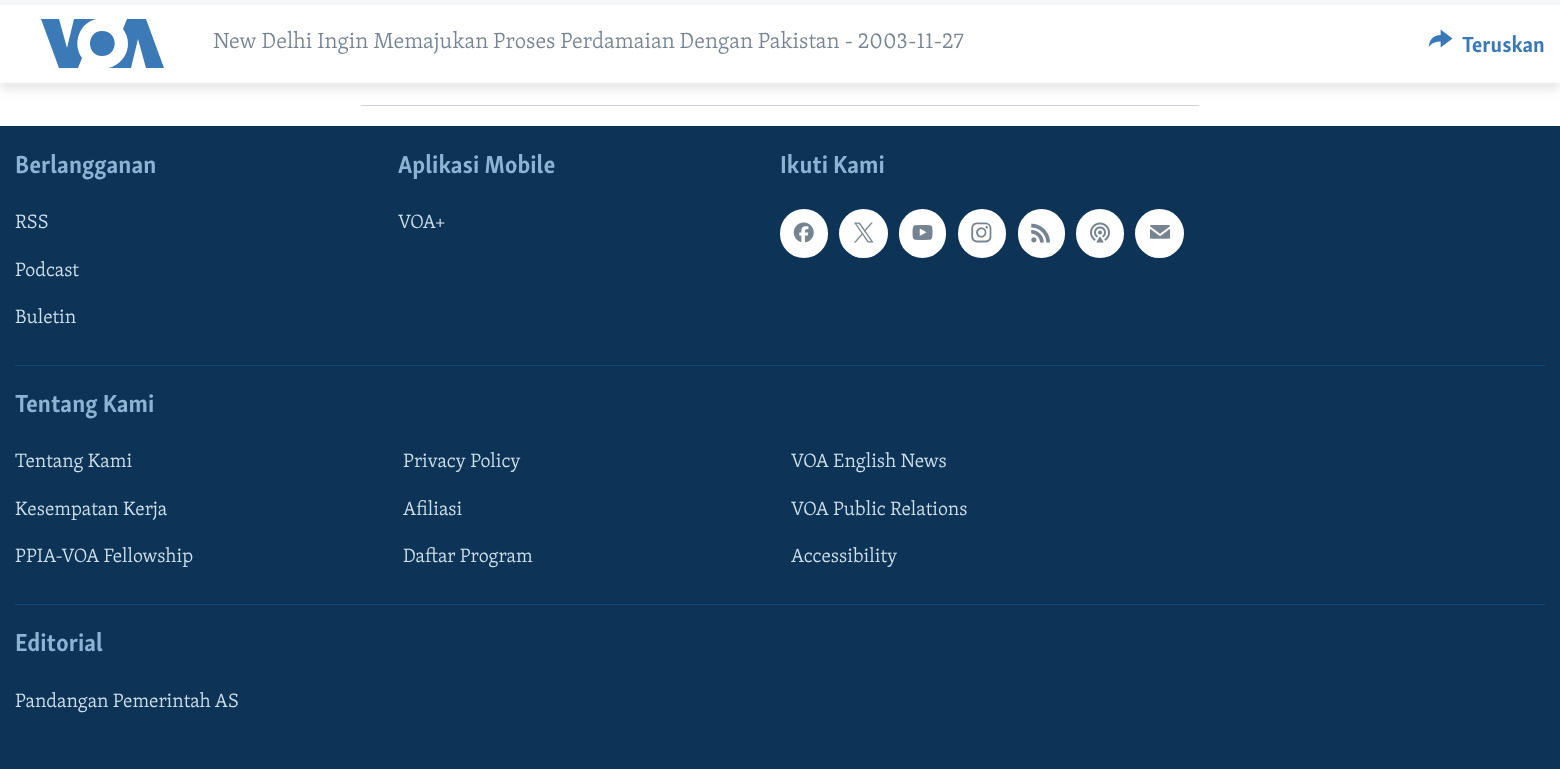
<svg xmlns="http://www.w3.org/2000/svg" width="1560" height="769">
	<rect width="100%" height="100%" fill="#FFFFFF" />
	<rect x="361" y="105" width="838" height="1" fill="#CBD1D6" />
	<rect x="0" y="6" width="1560" height="83" fill="#000000" fill-opacity="0.1" filter="blur(6px)" />
	<rect x="0" y="5" width="1560" height="78" fill="#FFFFFF" />
	<rect x="0" y="0" width="1560" height="5" fill="#F6F7F8" />
	<path d="M82 58L78 68H59L41 19H59L67 48L74 19H96C79 23 72 44 82 58ZM102 31C86 31 86 56 102 56C119 56 119 31 102 31ZM128 44C128 55 120 65 109 68H131L138 39L146 68H164L146 19H127L123 29C126 33 128 38 128 44Z" fill="#3B79B7" />
	<text x="213" y="48" font-family="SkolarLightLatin" font-size="22.5" font-weight="300" fill="#768492">New Delhi Ingin Memajukan Proses Perdamaian Dengan Pakistan - 2003-11-27</text>
	<image x="1428" y="29" width="25" height="19" href="assets/img1.png" />
	<text x="1462" y="52" font-family="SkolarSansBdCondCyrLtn" font-size="22.5" font-weight="700" fill="#3A79B7">Teruskan</text>
	<rect x="0" y="126" width="1560" height="643" fill="#0D3456" />
	<text x="15" y="173" font-family="SkolarSansBdCondCyrLtn" font-size="25.25" font-weight="700" fill="#8DB3D4">Berlangganan</text>
	<g font-family="SkolarLightLatin" font-size="19.75" font-weight="300" fill="#D1E1EE">
		<text x="15" y="228">RSS</text>
		<text x="15" y="276">Podcast</text>
		<text x="15" y="323">Buletin</text>
	</g>
	<text x="398" y="173" font-family="SkolarSansBdCondCyrLtn" font-size="25.25" font-weight="700" fill="#8DB3D4">Aplikasi Mobile</text>
	<text x="398" y="228" font-family="SkolarLightLatin" font-size="19.75" font-weight="300" fill="#D1E1EE">VOA+</text>
	<text x="780" y="173" font-family="SkolarSansBdCondCyrLtn" font-size="25.25" font-weight="700" fill="#8DB3D4">Ikuti Kami</text>
	<rect x="780" y="209" width="48" height="49" rx="24" fill="#FFFFFF" />
	<image x="793" y="222" width="21" height="21" href="assets/img2.png" />
	<circle cx="863.5" cy="233.5" r="24.5" fill="#FFFFFF" />
	<image x="854" y="222" width="20" height="21" href="assets/img3.png" />
	<rect x="899" y="209" width="47" height="49" rx="23.5" fill="#FFFFFF" />
	<image x="912" y="225" width="21" height="15" href="assets/img4.png" />
	<rect x="958" y="209" width="48" height="49" rx="24" fill="#FFFFFF" />
	<image x="971" y="222" width="21" height="21" href="assets/img5.png" />
	<rect x="1018" y="209" width="47" height="49" rx="23.5" fill="#FFFFFF" />
	<image x="1031" y="223" width="19" height="20" href="assets/img6.png" />
	<rect x="1076" y="209" width="48" height="49" rx="24" fill="#FFFFFF" />
	<image x="1090" y="222" width="20" height="21" href="assets/img7.png" />
	<circle cx="1159.5" cy="233.5" r="24.5" fill="#FFFFFF" />
	<image x="1150" y="225" width="20" height="14" href="assets/img8.png" />
	<rect x="15" y="365" width="1530" height="1" fill="#134976" />
	<text x="15" y="412" font-family="SkolarSansBdCondCyrLtn" font-size="25.25" font-weight="700" fill="#8DB3D4">Tentang Kami</text>
	<g font-family="SkolarLightLatin" font-size="19.75" font-weight="300" fill="#D1E1EE">
		<text x="15" y="467">Tentang Kami</text>
		<text x="403" y="467">Privacy Policy</text>
		<text x="791" y="467">VOA English News</text>
		<text x="15" y="515">Kesempatan Kerja</text>
		<text x="403" y="515">Afiliasi</text>
		<text x="791" y="515">VOA Public Relations</text>
		<text x="15" y="562">PPIA-VOA Fellowship</text>
		<text x="403" y="562">Daftar Program</text>
		<text x="791" y="562">Accessibility</text>
	</g>
	<rect x="15" y="604" width="1530" height="1" fill="#134976" />
	<text x="15" y="651" font-family="SkolarSansBdCondCyrLtn" font-size="25.25" font-weight="700" fill="#8DB3D4">Editorial</text>
	<text x="15" y="707" font-family="SkolarLightLatin" font-size="19.75" font-weight="300" fill="#D1E1EE">Pandangan Pemerintah AS</text>
</svg>
